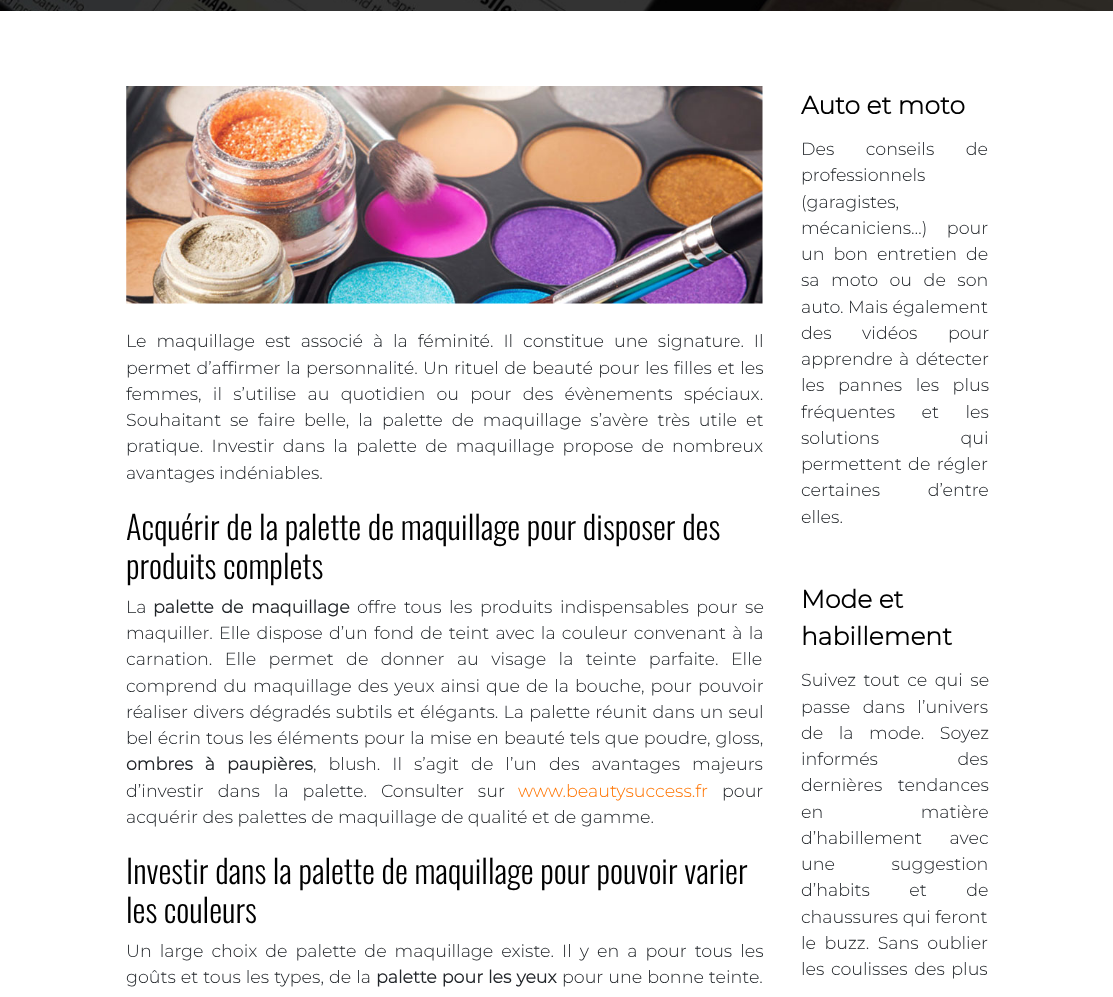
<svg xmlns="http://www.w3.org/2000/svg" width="1113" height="997">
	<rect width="100%" height="100%" fill="#FFFFFF" />
	<image x="0" y="0" width="1113" height="11" href="assets/img1.png" />
	<image x="126" y="86" width="637" height="218" href="assets/img2.png" />
	<g font-family="Montserrat" font-size="17.5" font-weight="100" fill="#212529">
		<text x="126" y="347" word-spacing="5.4">Le maquillage est associé à la féminité. Il constitue une signature. Il</text>
		<text x="126" y="374" word-spacing="0.9">permet d’affirmer la personnalité. Un rituel de beauté pour les filles et les</text>
		<text x="126" y="400" word-spacing="6.75">femmes, il s’utilise au quotidien ou pour des évènements spéciaux.</text>
		<text x="126" y="426" word-spacing="4.4">Souhaitant se faire belle, la palette de maquillage s’avère très utile et</text>
		<text x="126" y="452" word-spacing="3.75">pratique. Investir dans la palette de maquillage propose de nombreux</text>
		<text x="126" y="479">avantages indéniables.</text>
	</g>
	<g font-family="Oswald" font-size="32.5" font-weight="300" fill="#000000">
		<text x="126" y="540">Acquérir de la palette de maquillage pour disposer des</text>
		<text x="126" y="579">produits complets</text>
	</g>
	<text x="126" y="613" font-family="Montserrat" font-size="17.5" font-weight="100" fill="#212529">La</text>
	<text x="153" y="613" word-spacing="3" font-family="Montserrat" font-size="17.5" font-weight="700" fill="#212529">palette de maquillage</text>
	<g font-family="Montserrat" font-size="17.5" font-weight="100" fill="#212529">
		<text x="357" y="613" word-spacing="3">offre tous les produits indispensables pour se</text>
		<text x="126" y="639" word-spacing="1.75">maquiller. Elle dispose d’un fond de teint avec la couleur convenant à la</text>
		<text x="126" y="665" word-spacing="8">carnation. Elle permet de donner au visage la teinte parfaite. Elle</text>
		<text x="126" y="692" word-spacing="1.5">comprend du maquillage des yeux ainsi que de la bouche, pour pouvoir</text>
		<text x="126" y="718" word-spacing="0.75">réaliser divers dégradés subtils et élégants. La palette réunit dans un seul</text>
		<text x="126" y="744" word-spacing="0.5">bel écrin tous les éléments pour la mise en beauté tels que poudre, gloss,</text>
	</g>
	<text x="126" y="770" word-spacing="7.5" font-family="Montserrat" font-size="17.5" font-weight="700" fill="#212529">ombres à paupières</text>
	<g font-family="Montserrat" font-size="17.5" font-weight="100" fill="#212529">
		<text x="313" y="770" word-spacing="7.5">, blush. Il s’agit de l’un des avantages majeurs</text>
		<text x="126" y="797" word-spacing="9.5">d’investir dans la palette. Consulter sur</text>
	</g>
	<text x="518" y="797" font-family="Montserrat" font-size="17.5" font-weight="100" fill="#FF7400">www.beautysuccess.fr</text>
	<g font-family="Montserrat" font-size="17.5" font-weight="100" fill="#212529">
		<text x="722" y="797">pour</text>
		<text x="126" y="823">acquérir des palettes de maquillage de qualité et de gamme.</text>
	</g>
	<g font-family="Oswald" font-size="32.5" font-weight="300" fill="#000000">
		<text x="126" y="884">Investir dans la palette de maquillage pour pouvoir varier</text>
		<text x="126" y="923">les couleurs</text>
	</g>
	<g font-family="Montserrat" font-size="17.5" font-weight="100" fill="#212529">
		<text x="126" y="957" word-spacing="3.5">Un large choix de palette de maquillage existe. Il y en a pour tous les</text>
		<text x="126" y="983" word-spacing="0.5">goûts et tous les types, de la</text>
	</g>
	<text x="376" y="983" word-spacing="0.5" font-family="Montserrat" font-size="17.5" font-weight="700" fill="#212529">palette pour les yeux</text>
	<text x="562" y="983" word-spacing="0.5" font-family="Montserrat" font-size="17.5" font-weight="100" fill="#212529">pour une bonne teinte.</text>
	<text x="801" y="114" font-family="Montserrat" font-size="25" font-weight="700" fill="#000000">Auto et moto</text>
	<g font-family="Montserrat" font-size="17.5" font-weight="100" fill="#212529">
		<text x="801" y="155" word-spacing="27">Des conseils de</text>
		<text x="801" y="181">professionnels</text>
		<text x="801" y="208">(garagistes,</text>
		<text x="801" y="234" word-spacing="15">mécaniciens…) pour</text>
		<text x="801" y="260" word-spacing="4.5">un bon entretien de</text>
		<text x="801" y="286" word-spacing="7">sa moto ou de son</text>
		<text x="801" y="313">auto. Mais également</text>
		<text x="801" y="339" word-spacing="26">des vidéos pour</text>
		<text x="801" y="365" word-spacing="2">apprendre à détecter</text>
		<text x="801" y="391" word-spacing="9">les pannes les plus</text>
		<text x="801" y="418" word-spacing="22">fréquentes et les</text>
		<text x="801" y="444" word-spacing="77">solutions qui</text>
		<text x="801" y="470" word-spacing="2">permettent de régler</text>
		<text x="801" y="496" word-spacing="43">certaines d’entre</text>
		<text x="801" y="523">elles.</text>
	</g>
	<g font-family="Montserrat" font-size="25" font-weight="700" fill="#000000">
		<text x="801" y="608">Mode et</text>
		<text x="801" y="645">habillement</text>
	</g>
	<g font-family="Montserrat" font-size="17.5" font-weight="100" fill="#212529">
		<text x="801" y="686" word-spacing="3">Suivez tout ce qui se</text>
		<text x="801" y="713" word-spacing="8">passe dans l’univers</text>
		<text x="801" y="739" word-spacing="11">de la mode. Soyez</text>
		<text x="801" y="765" word-spacing="75">informés des</text>
		<text x="801" y="791" word-spacing="11">dernières tendances</text>
		<text x="801" y="818" word-spacing="93">en matière</text>
		<text x="801" y="844" word-spacing="23">d’habillement avec</text>
		<text x="801" y="870" word-spacing="52">une suggestion</text>
		<text x="801" y="896" word-spacing="35">d’habits et de</text>
		<text x="801" y="923">chaussures qui feront</text>
		<text x="801" y="949" word-spacing="4">le buzz. Sans oublier</text>
		<text x="801" y="975" word-spacing="2">les coulisses des plus</text>
	</g>
</svg>
